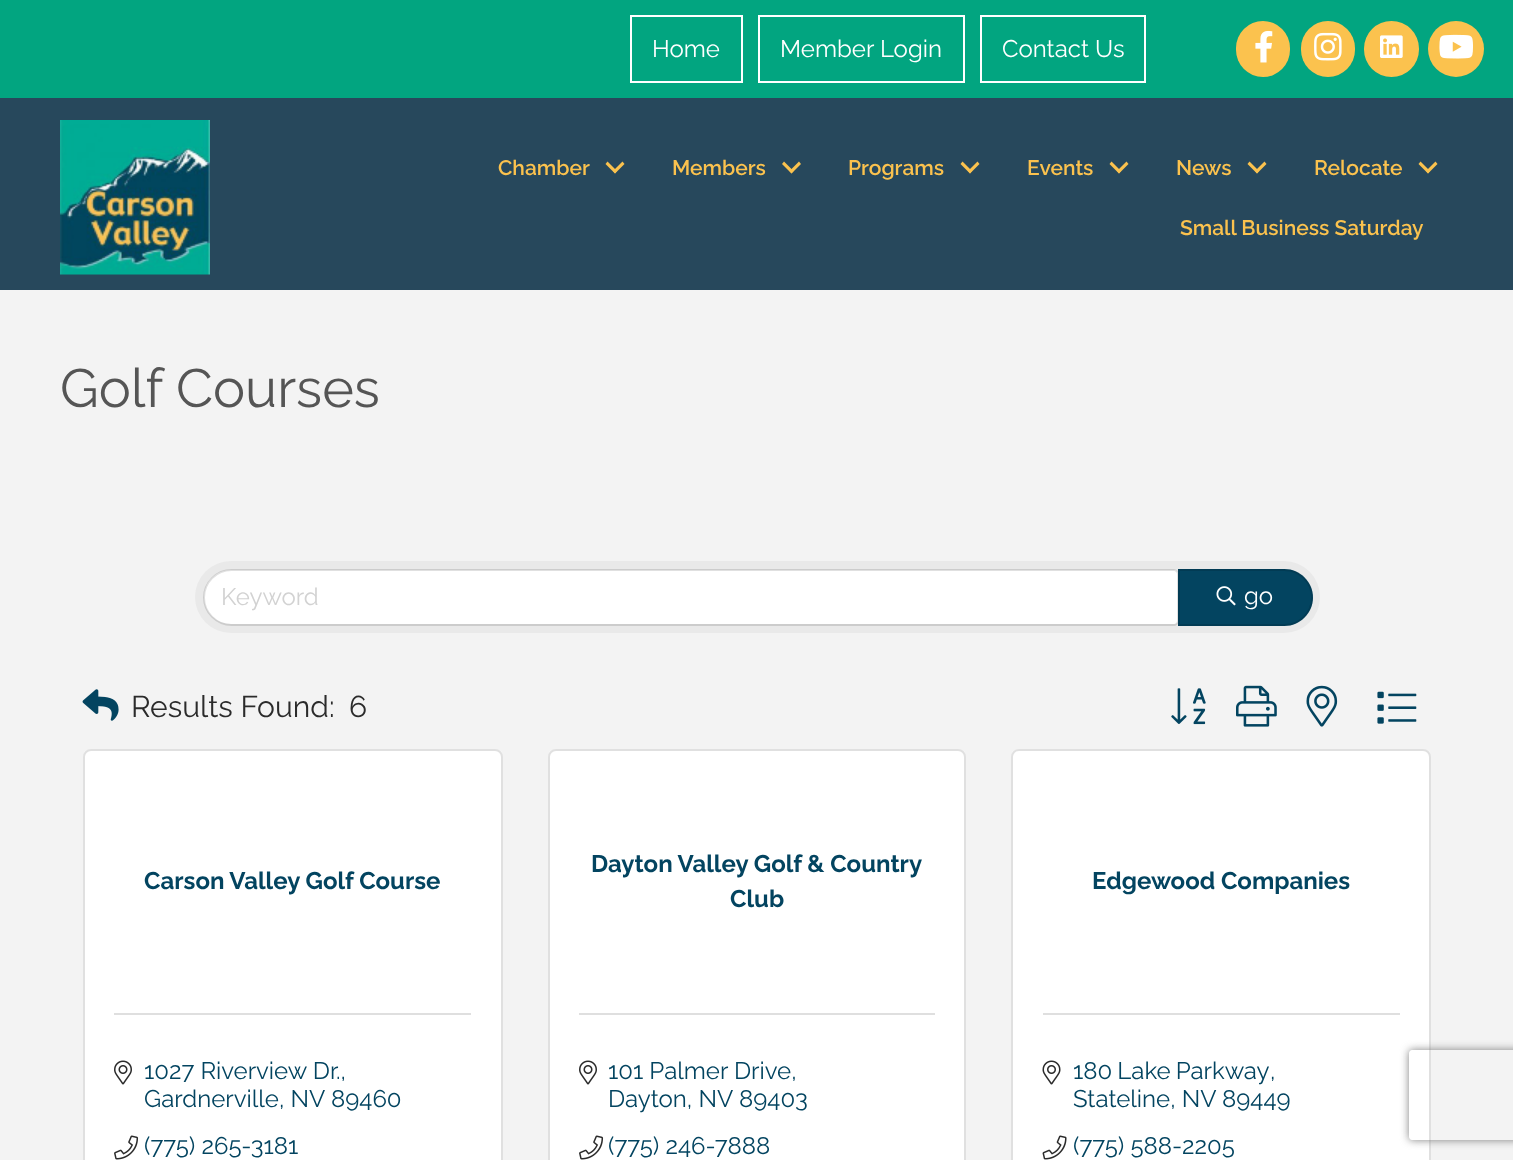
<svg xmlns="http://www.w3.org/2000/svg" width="1513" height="1160">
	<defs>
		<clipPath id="clip1"><path d="M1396 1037H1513V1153H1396ZM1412 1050H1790C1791.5 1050 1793 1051.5 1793 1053V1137C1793 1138.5 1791.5 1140 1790 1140H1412C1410.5 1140 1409 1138.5 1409 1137V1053C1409 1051.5 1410.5 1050 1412 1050Z" clip-rule="evenodd" /></clipPath>
	</defs>
	<rect width="100%" height="100%" fill="#02A580" />
	<rect x="631" y="16" width="111" height="66" fill="none" stroke="#FFFFFF" stroke-width="2" />
	<text x="652" y="57" font-family="Raleway" font-size="24" fill="#FFFFFF">Home</text>
	<rect x="759" y="16" width="205" height="66" fill="none" stroke="#FFFFFF" stroke-width="2" />
	<text x="780" y="57" font-family="Raleway" font-size="24" fill="#FFFFFF">Member Login</text>
	<rect x="981" y="16" width="164" height="66" fill="none" stroke="#FFFFFF" stroke-width="2" />
	<text x="1002" y="57" font-family="Raleway" font-size="24" fill="#FFFFFF">Contact Us</text>
	<rect x="1236" y="21" width="54" height="56" rx="27" fill="#FBC24E" />
	<image x="1255" y="30" width="18" height="33" href="assets/img1.png" />
	<rect x="1301" y="21" width="54" height="56" rx="27" fill="#FBC24E" />
	<image x="1314" y="32" width="28" height="29" href="assets/img2.png" />
	<rect x="1364" y="21" width="55" height="56" rx="27.5" fill="#FBC24E" />
	<image x="1380" y="35" width="23" height="23" href="assets/img3.png" />
	<circle cx="1456" cy="49" r="28" fill="#FBC24E" />
	<image x="1439" y="34" width="34" height="25" href="assets/img4.png" />
	<rect x="0" y="98" width="1513" height="192" fill="#27485C" />
	<image x="60" y="120" width="150" height="155" href="assets/img5.png" />
	<text x="498" y="175" font-family="Raleway" font-size="21" font-weight="600" fill="#FBC24E">Chamber</text>
	<path d="M622.5 161.5L624.5 164L615 173.5L613 171Z" fill="#FBC24E" />
	<path d="M607.5 161.5L617 171L615 173.5L605.5 164Z" fill="#FBC24E" />
	<text x="672" y="175" font-family="Raleway" font-size="21" font-weight="600" fill="#FBC24E">Members</text>
	<path d="M799 161.5L801 164L791.5 173.5L789.5 171Z" fill="#FBC24E" />
	<path d="M784 161.5L793.5 171L791.5 173.5L782 164Z" fill="#FBC24E" />
	<text x="848" y="175" font-family="Raleway" font-size="21" font-weight="600" fill="#FBC24E">Programs</text>
	<path d="M977.5 161.5L979.5 164L970 173.5L968 171Z" fill="#FBC24E" />
	<path d="M962.5 161.5L972 171L970 173.5L960.5 164Z" fill="#FBC24E" />
	<text x="1027" y="175" font-family="Raleway" font-size="21" font-weight="600" fill="#FBC24E">Events</text>
	<path d="M1126.5 161.5L1128.5 164L1119 173.5L1117 171Z" fill="#FBC24E" />
	<path d="M1111.5 161.5L1121 171L1119 173.5L1109.5 164Z" fill="#FBC24E" />
	<text x="1176" y="175" font-family="Raleway" font-size="21" font-weight="600" fill="#FBC24E">News</text>
	<path d="M1264.5 161.5L1266.5 164L1257 173.5L1255 171Z" fill="#FBC24E" />
	<path d="M1249.5 161.5L1259 171L1257 173.5L1247.5 164Z" fill="#FBC24E" />
	<text x="1314" y="175" font-family="Raleway" font-size="21" font-weight="600" fill="#FBC24E">Relocate</text>
	<path d="M1435.5 161.5L1437.5 164L1428 173.5L1426 171Z" fill="#FBC24E" />
	<path d="M1420.5 161.5L1430 171L1428 173.5L1418.5 164Z" fill="#FBC24E" />
	<text x="1180" y="235" font-family="Raleway" font-size="21" font-weight="600" fill="#FBC24E">Small Business Saturday</text>
	<rect x="0" y="290" width="1513" height="870" fill="#F3F3F3" />
	<text x="60" y="407" font-family="Raleway" font-size="54" fill="#555555">Golf Courses</text>
	<rect x="195" y="561" width="1125" height="72" rx="36" fill="#E9E9E9" />
	<path d="M231 570H1175C1176.5 570 1178 571.5 1178 573V621C1178 622.5 1176.5 624 1175 624H231C216 624 204 612 204 597C204 582 216 570 231 570Z" fill="#FFFFFF" />
	<path d="M231.5 570H1174C1176 570 1178 572 1178 574V621C1178 623 1176 625 1174 625H231.5C216.5 625 204 612.5 204 597.5C204 582.5 216.5 570 231.5 570Z" fill="none" stroke="#000000" stroke-opacity="0.12" stroke-width="2" />
	<text x="221" y="605" font-family="Raleway" font-size="24" fill="#D2D2D2">Keyword</text>
	<path d="M1178 569H1284.5C1300 569 1313 582 1313 597.5C1313 613 1300 626 1284.5 626H1178Z" fill="#034460" />
	<path d="M1179 570H1284.5C1299.5 570 1312 582.5 1312 597.5C1312 612.5 1299.5 625 1284.5 625H1179Z" fill="none" stroke="#000000" stroke-opacity="0.12" stroke-width="2" />
	<image x="1216" y="586" width="20" height="20" href="assets/img6.png" />
	<text x="1244" y="604" font-family="Raleway" font-size="24" fill="#FFFFFF">go</text>
	<image x="82" y="689" width="37" height="32" href="assets/img7.png" />
	<g font-family="Raleway" font-size="30" fill="#2B2B2B">
		<text x="131" y="717">Results Found:</text>
		<text x="349" y="717">6</text>
	</g>
	<image x="1171" y="688" width="35" height="37" href="assets/img8.png" />
	<image x="1236" y="685" width="41" height="42" href="assets/img9.png" />
	<image x="1306" y="685" width="32" height="42" href="assets/img10.png" />
	<image x="1377" y="691" width="40" height="33" href="assets/img11.png" />
	<rect x="83" y="749" width="420" height="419" rx="8" fill="#FFFFFF" />
	<rect x="84" y="750" width="418" height="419" rx="7" fill="none" stroke="#000000" stroke-opacity="0.12" stroke-width="2" />
	<text x="144" y="889" font-family="Raleway" font-size="24" font-weight="700" fill="#034460">Carson Valley Golf Course</text>
	<rect x="114" y="1013" width="357" height="2" fill="#DFDFDF" />
	<image x="114" y="1060" width="18" height="25" href="assets/img12.png" />
	<g font-family="Raleway" font-size="24" fill="#034460">
		<text x="144" y="1079">1027 Riverview Dr.,</text>
		<text x="144" y="1107">Gardnerville, NV</text>
		<text x="331" y="1107">89460</text>
	</g>
	<image x="114" y="1135" width="25" height="25" href="assets/img13.png" />
	<text x="144" y="1154" font-family="Raleway" font-size="24" fill="#034460">(775) 265-3181</text>
	<rect x="548" y="749" width="418" height="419" rx="8" fill="#FFFFFF" />
	<rect x="549" y="750" width="416" height="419" rx="7" fill="none" stroke="#000000" stroke-opacity="0.12" stroke-width="2" />
	<g font-family="Raleway" font-size="24" font-weight="700" fill="#034460">
		<text x="591" y="872">Dayton Valley Golf &amp; Country</text>
		<text x="730" y="907">Club</text>
	</g>
	<rect x="579" y="1013" width="356" height="2" fill="#DFDFDF" />
	<image x="579" y="1060" width="18" height="25" href="assets/img12.png" />
	<g font-family="Raleway" font-size="24" fill="#034460">
		<text x="608" y="1079">101 Palmer Drive,</text>
		<text x="608" y="1107">Dayton, NV</text>
		<text x="739" y="1107">89403</text>
	</g>
	<image x="579" y="1135" width="25" height="25" href="assets/img13.png" />
	<text x="608" y="1154" font-family="Raleway" font-size="24" fill="#034460">(775) 246-7888</text>
	<rect x="1011" y="749" width="420" height="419" rx="8" fill="#FFFFFF" />
	<rect x="1012" y="750" width="418" height="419" rx="7" fill="none" stroke="#000000" stroke-opacity="0.12" stroke-width="2" />
	<text x="1092" y="889" font-family="Raleway" font-size="24" font-weight="700" fill="#034460">Edgewood Companies</text>
	<rect x="1043" y="1013" width="357" height="2" fill="#DFDFDF" />
	<image x="1042" y="1060" width="19" height="25" href="assets/img14.png" />
	<g font-family="Raleway" font-size="24" fill="#034460">
		<text x="1073" y="1079" word-spacing="-1">180 Lake Parkway</text>
		<text x="1270" y="1079">,</text>
		<text x="1073" y="1107">Stateline, NV</text>
		<text x="1222" y="1107">89449</text>
	</g>
	<image x="1042" y="1135" width="25" height="25" href="assets/img15.png" />
	<text x="1073" y="1154" font-family="Raleway" font-size="24" fill="#034460">(775) 588-2205</text>
	<g clip-path="url(#clip1)">
		<rect x="1409" y="1050" width="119" height="90" rx="3" fill="#808080" filter="blur(4px)" />
	</g>
</svg>
